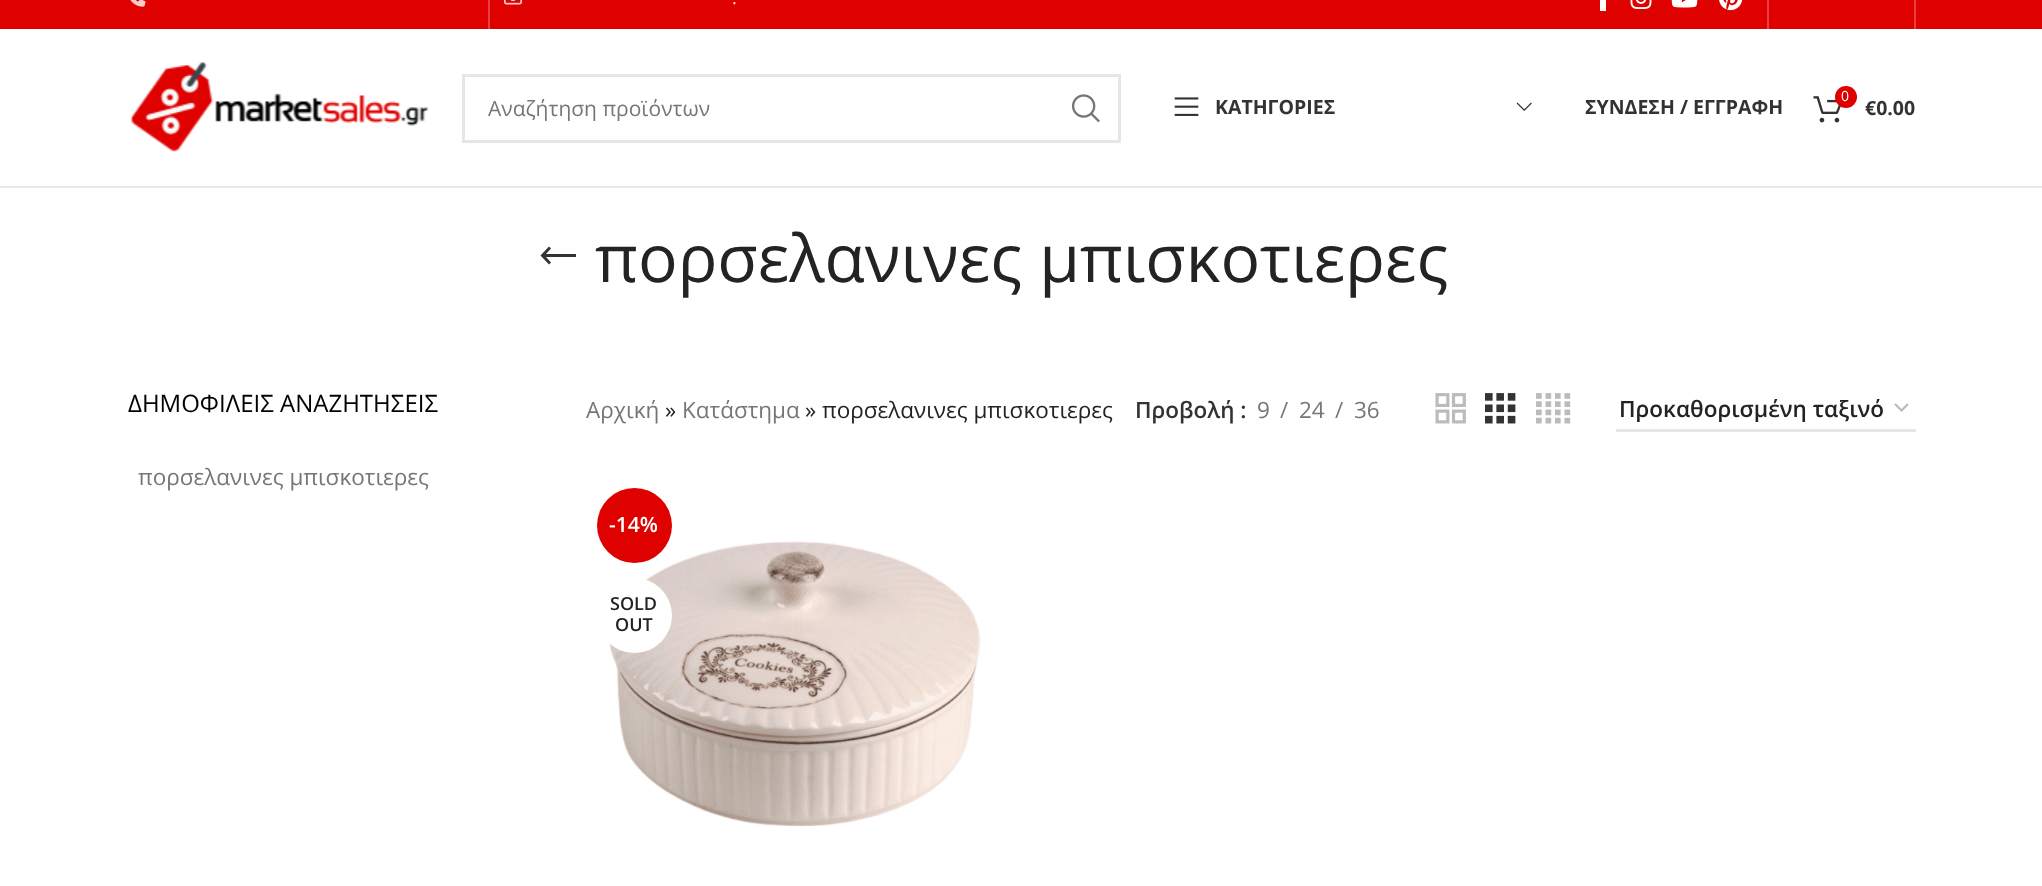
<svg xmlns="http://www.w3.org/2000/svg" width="2042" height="886">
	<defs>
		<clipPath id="clip1"><rect x="1619" y="395" width="267" height="27" /></clipPath>
	</defs>
	<rect width="100%" height="100%" fill="#FFFFFF" />
	<rect x="0" y="0" width="2042" height="29" fill="#DF0000" />
	<image x="130" y="0" width="16" height="7" href="assets/img1.png" />
	<rect x="488" y="0" width="2" height="29" fill="#E74040" />
	<image x="504" y="0" width="18" height="5" href="assets/img2.png" />
	<text x="732" y="4" font-family="Open Sans" font-size="18" fill="#FCE6E6">.</text>
	<rect x="1600" y="0" width="6" height="11" fill="#FFFFFF" />
	<image x="1630" y="0" width="22" height="9" href="assets/img3.png" />
	<image x="1671" y="0" width="27" height="8" href="assets/img4.png" />
	<image x="1719" y="0" width="24" height="11" href="assets/img5.png" />
	<rect x="1767" y="0" width="2" height="29" fill="#E74040" />
	<rect x="1914" y="0" width="2" height="29" fill="#E74040" />
	<rect x="0" y="186" width="2042" height="2" fill="#E8E8E8" />
	<image x="130" y="62" width="299" height="90" href="assets/img6.png" />
	<rect x="463.5" y="75.5" width="656" height="66" fill="none" stroke="#E6E6E6" stroke-width="3" />
	<text x="488" y="116" font-family="Open Sans" font-size="21" fill="#767676">Αναζήτηση προϊόντων</text>
	<image x="1072" y="94" width="28" height="29" href="assets/img7.png" />
	<image x="1174" y="97" width="25" height="19" href="assets/img8.png" />
	<text x="1215" y="114" font-family="Open Sans" font-size="19.5" font-weight="700" fill="#333333">ΚΑΤΗΓΟΡΙΕΣ</text>
	<image x="1516" y="102" width="16" height="9" href="assets/img9.png" />
	<text x="1585" y="114" font-family="Open Sans" font-size="19.5" font-weight="700" fill="#333333">ΣΥΝΔΕΣΗ / ΕΓΓΡΑΦΗ</text>
	<image x="1813" y="96" width="28" height="27" href="assets/img10.png" />
	<circle cx="1846" cy="97" r="11" fill="#DF0000" />
	<text x="1841" y="101" font-family="Open Sans" font-size="14" fill="#FFFFFF">0</text>
	<text x="1865" y="115" font-family="Open Sans" font-size="19.5" font-weight="700" fill="#333333">€0.00</text>
	<path d="M551 262.5L546 257H576V254H546L551 248.5L549 246.5L540.5 255.5L549 264.5Z" fill="#333333" />
	<text x="595" y="282" font-family="Open Sans" font-size="66" fill="#232323">πορσελανινες μπισκοτιερες</text>
	<text x="128" y="412" font-family="Open Sans" font-size="24" fill="#000000">ΔΗΜΟΦΙΛΕΙΣ ΑΝΑΖΗΤΗΣΕΙΣ</text>
	<g font-family="Open Sans" font-size="22.5" fill="#767676">
		<text x="138" y="485">πορσελανινες μπισκοτιερες</text>
		<text x="586" y="418">Αρχική</text>
	</g>
	<text x="665" y="418" font-family="Open Sans" font-size="22.5" fill="#232323">»</text>
	<text x="682" y="418" font-family="Open Sans" font-size="22.5" fill="#767676">Κατάστημα</text>
	<g font-family="Open Sans" font-size="22.5" fill="#232323">
		<text x="805" y="418">»</text>
		<text x="822" y="418">πορσελανινες μπισκοτιερες</text>
	</g>
	<text x="1135" y="418" font-family="Open Sans" font-size="22.5" font-weight="600" fill="#333333">Προβολή :</text>
	<g font-family="Open Sans" font-size="22.5" fill="#767676">
		<text x="1257" y="418">9</text>
		<text x="1280" y="418">/</text>
		<text x="1299" y="418">24</text>
		<text x="1335" y="418">/</text>
		<text x="1354" y="418">36</text>
	</g>
	<image x="1435" y="393" width="31" height="31" href="assets/img11.png" />
	<image x="1485" y="393" width="31" height="31" href="assets/img12.png" />
	<image x="1536" y="393" width="35" height="31" href="assets/img13.png" />
	<path d="M1895 404L1901.5 410.5L1908 404" fill="none" stroke="#BBBBBB" stroke-width="2.2" />
	<rect x="1616" y="429" width="300" height="3" fill="#E6E6E6" />
	<g clip-path="url(#clip1)">
		<text x="1619" y="417" font-family="Open Sans" font-size="22.5" font-weight="600" fill="#232323">Προκαθορισμένη ταξινό</text>
	</g>
	<image x="608" y="541" width="373" height="286" href="assets/img14.png" />
	<circle cx="634.5" cy="525.5" r="37.5" fill="#DF0000" />
	<text x="609" y="532" font-family="Open Sans" font-size="21" font-weight="600" fill="#FFFFFF">-14%</text>
	<circle cx="634.5" cy="615.5" r="37.5" fill="#FFFFFF" />
	<g font-family="Open Sans" font-size="18" font-weight="600" fill="#232323">
		<text x="610" y="610">SOLD</text>
		<text x="615" y="631">OUT</text>
	</g>
</svg>
